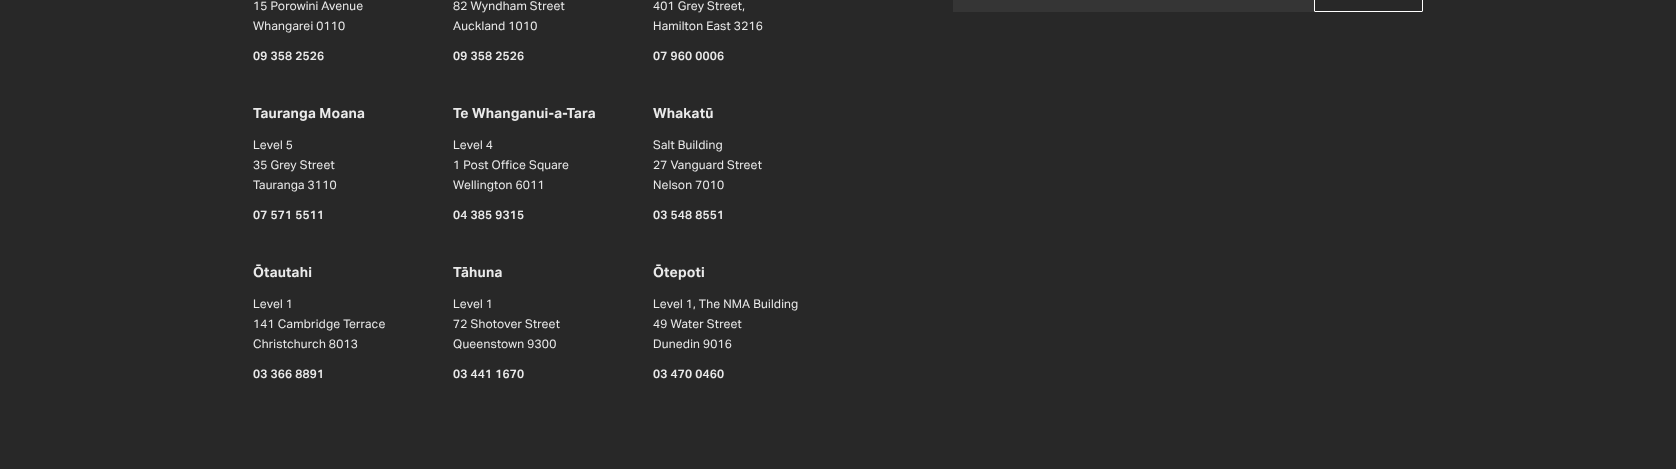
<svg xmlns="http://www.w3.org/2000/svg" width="1676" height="469">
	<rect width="100%" height="100%" fill="#282828" />
	<g font-family="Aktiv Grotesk" font-size="12" letter-spacing="0.2" fill="#EAEAEA">
		<text x="253" y="10">15 Porowini Avenue</text>
		<text x="253" y="30">Whangarei 0110</text>
	</g>
	<text x="253" y="60" font-family="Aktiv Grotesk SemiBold" font-size="12" font-weight="600" letter-spacing="0.2" fill="#EAEAEA">09 358 2526</text>
	<g font-family="Aktiv Grotesk" font-size="12" letter-spacing="0.2" fill="#EAEAEA">
		<text x="453" y="10">82 Wyndham Street</text>
		<text x="453" y="30">Auckland 1010</text>
	</g>
	<text x="453" y="60" font-family="Aktiv Grotesk SemiBold" font-size="12" font-weight="600" letter-spacing="0.2" fill="#EAEAEA">09 358 2526</text>
	<g font-family="Aktiv Grotesk" font-size="12" letter-spacing="0.2" fill="#EAEAEA">
		<text x="653" y="10">401 Grey Street,</text>
		<text x="653" y="30">Hamilton East 3216</text>
	</g>
	<text x="653" y="60" font-family="Aktiv Grotesk SemiBold" font-size="12" font-weight="600" letter-spacing="0.2" fill="#EAEAEA">07 960 0006</text>
	<text x="253" y="118" font-family="Aktiv Grotesk" font-size="14" font-weight="700" letter-spacing="0.2" fill="#EAEAEA">Tauranga Moana</text>
	<g font-family="Aktiv Grotesk" font-size="12" letter-spacing="0.2" fill="#EAEAEA">
		<text x="253" y="149">Level 5</text>
		<text x="253" y="169">35 Grey Street</text>
		<text x="253" y="189">Tauranga 3110</text>
	</g>
	<text x="253" y="219" font-family="Aktiv Grotesk SemiBold" font-size="12" font-weight="600" letter-spacing="0.2" fill="#EAEAEA">07 571 5511</text>
	<text x="453" y="118" font-family="Aktiv Grotesk" font-size="14" font-weight="700" letter-spacing="0.2" fill="#EAEAEA">Te Whanganui-a-Tara</text>
	<g font-family="Aktiv Grotesk" font-size="12" letter-spacing="0.2" fill="#EAEAEA">
		<text x="453" y="149">Level 4</text>
		<text x="453" y="169">1 Post Office Square</text>
		<text x="453" y="189">Wellington 6011</text>
	</g>
	<text x="453" y="219" font-family="Aktiv Grotesk SemiBold" font-size="12" font-weight="600" letter-spacing="0.2" fill="#EAEAEA">04 385 9315</text>
	<text x="653" y="118" font-family="Aktiv Grotesk" font-size="14" font-weight="700" letter-spacing="0.2" fill="#EAEAEA">Whakatū</text>
	<g font-family="Aktiv Grotesk" font-size="12" letter-spacing="0.2" fill="#EAEAEA">
		<text x="653" y="149">Salt Building</text>
		<text x="653" y="169">27 Vanguard Street</text>
		<text x="653" y="189">Nelson 7010</text>
	</g>
	<text x="653" y="219" font-family="Aktiv Grotesk SemiBold" font-size="12" font-weight="600" letter-spacing="0.2" fill="#EAEAEA">03 548 8551</text>
	<text x="253" y="277" font-family="Aktiv Grotesk" font-size="14" font-weight="700" letter-spacing="0.2" fill="#EAEAEA">Ōtautahi</text>
	<g font-family="Aktiv Grotesk" font-size="12" letter-spacing="0.2" fill="#EAEAEA">
		<text x="253" y="308">Level 1</text>
		<text x="253" y="328">141 Cambridge Terrace</text>
		<text x="253" y="348">Christchurch 8013</text>
	</g>
	<text x="253" y="378" font-family="Aktiv Grotesk SemiBold" font-size="12" font-weight="600" letter-spacing="0.2" fill="#EAEAEA">03 366 8891</text>
	<text x="453" y="277" font-family="Aktiv Grotesk" font-size="14" font-weight="700" letter-spacing="0.2" fill="#EAEAEA">Tāhuna</text>
	<g font-family="Aktiv Grotesk" font-size="12" letter-spacing="0.2" fill="#EAEAEA">
		<text x="453" y="308">Level 1</text>
		<text x="453" y="328">72 Shotover Street</text>
		<text x="453" y="348">Queenstown 9300</text>
	</g>
	<text x="453" y="378" font-family="Aktiv Grotesk SemiBold" font-size="12" font-weight="600" letter-spacing="0.2" fill="#EAEAEA">03 441 1670</text>
	<text x="653" y="277" font-family="Aktiv Grotesk" font-size="14" font-weight="700" letter-spacing="0.2" fill="#EAEAEA">Ōtepoti</text>
	<g font-family="Aktiv Grotesk" font-size="12" letter-spacing="0.2" fill="#EAEAEA">
		<text x="653" y="308">Level 1, The NMA Building</text>
		<text x="653" y="328">49 Water Street</text>
		<text x="653" y="348">Dunedin 9016</text>
	</g>
	<text x="653" y="378" font-family="Aktiv Grotesk SemiBold" font-size="12" font-weight="600" letter-spacing="0.2" fill="#EAEAEA">03 470 0460</text>
	<rect x="953" y="0" width="361" height="12" fill="#353535" />
	<rect x="1314.5" y="-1.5" width="108" height="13" rx="0.5" fill="none" stroke="#FFFFFF" />
</svg>
